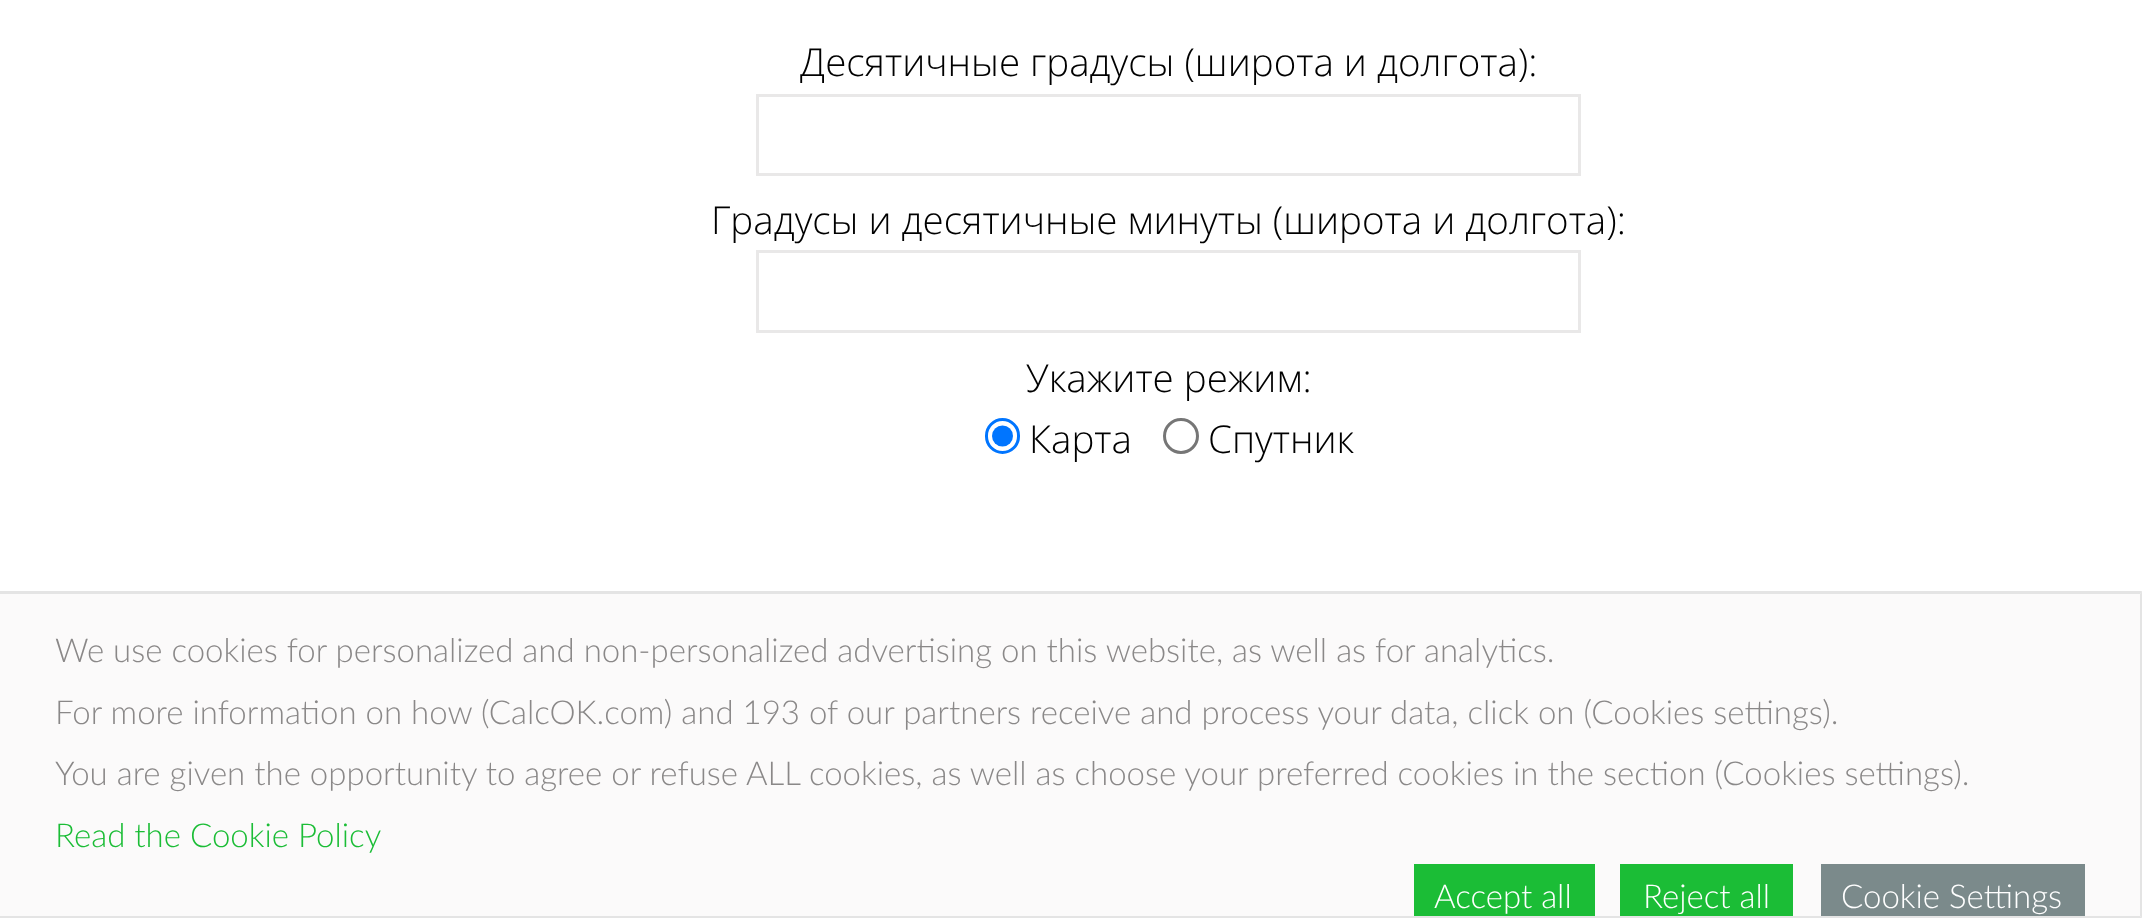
<svg xmlns="http://www.w3.org/2000/svg" width="2142" height="918">
	<rect width="100%" height="100%" fill="#FFFFFF" />
	<text x="800" y="76" font-family="Open Sans" font-size="38.5" font-weight="300" fill="#000000">Десятичные градусы (широта и долгота):</text>
	<rect x="757.5" y="95.5" width="822" height="79" fill="none" stroke="#E9E8E8" stroke-width="3" />
	<text x="711" y="234" font-family="Open Sans" font-size="38.5" font-weight="300" fill="#000000">Градусы и десятичные минуты (широта и долгота):</text>
	<rect x="757.5" y="251.5" width="822" height="80" fill="none" stroke="#E9E8E8" stroke-width="3" />
	<text x="1026" y="392" font-family="Open Sans" font-size="38.5" font-weight="300" fill="#000000">Укажите режим:</text>
	<rect x="986.5" y="419.5" width="32" height="33" rx="16" fill="none" stroke="#0075FF" stroke-width="3" />
	<circle cx="1002.5" cy="436" r="10.5" fill="#0075FF" />
	<text x="1029" y="453" font-family="Open Sans" font-size="38.5" font-weight="300" fill="#000000">Карта</text>
	<circle cx="1181" cy="436" r="16.5" fill="none" stroke="#767676" stroke-width="3" />
	<text x="1208" y="453" font-family="Open Sans" font-size="38.5" font-weight="300" fill="#000000">Спутник</text>
	<path d="M0 591H2142L2140 594H0Z" fill="#E4E4E4" />
	<path d="M2142 591V918L2140 916V594Z" fill="#DFDFDF" fill-opacity="0.85" />
	<path d="M2142 918H0V916H2140Z" fill="#DFDFDF" fill-opacity="0.85" />
	<rect x="0" y="594" width="2140" height="322" fill="#FBFAFA" />
	<g font-family="Lato" font-size="33" font-weight="300" fill="#8A8888">
		<text x="55" y="662">We use cookies for personalized and non-personalized advertising on this website, as well as for analytics.</text>
		<text x="55" y="724">For more information on how (CalcOK.com) and 193 of our partners receive and process your data, click on (Cookies settings).</text>
		<text x="55" y="785">You are given the opportunity to agree or refuse ALL cookies, as well as choose your preferred cookies in the section (Cookies settings).</text>
	</g>
	<text x="55" y="847" font-family="Lato" font-size="33" font-weight="300" fill="#1BBD36">Read the Cookie Policy</text>
	<rect x="1414" y="864" width="181" height="52" fill="#1BBD36" />
	<text x="1434" y="908" font-family="Lato" font-size="33" font-weight="300" fill="#FFFFFF">Accept all</text>
	<rect x="1620" y="864" width="173" height="52" fill="#1BBD36" />
	<text x="1643" y="908" font-family="Lato" font-size="33" font-weight="300" fill="#FFFFFF">Reject all</text>
	<rect x="1821" y="864" width="264" height="52" fill="#7B8A8B" />
	<text x="1841" y="908" font-family="Lato" font-size="33" font-weight="300" fill="#FFFFFF">Cookie Settings</text>
</svg>
